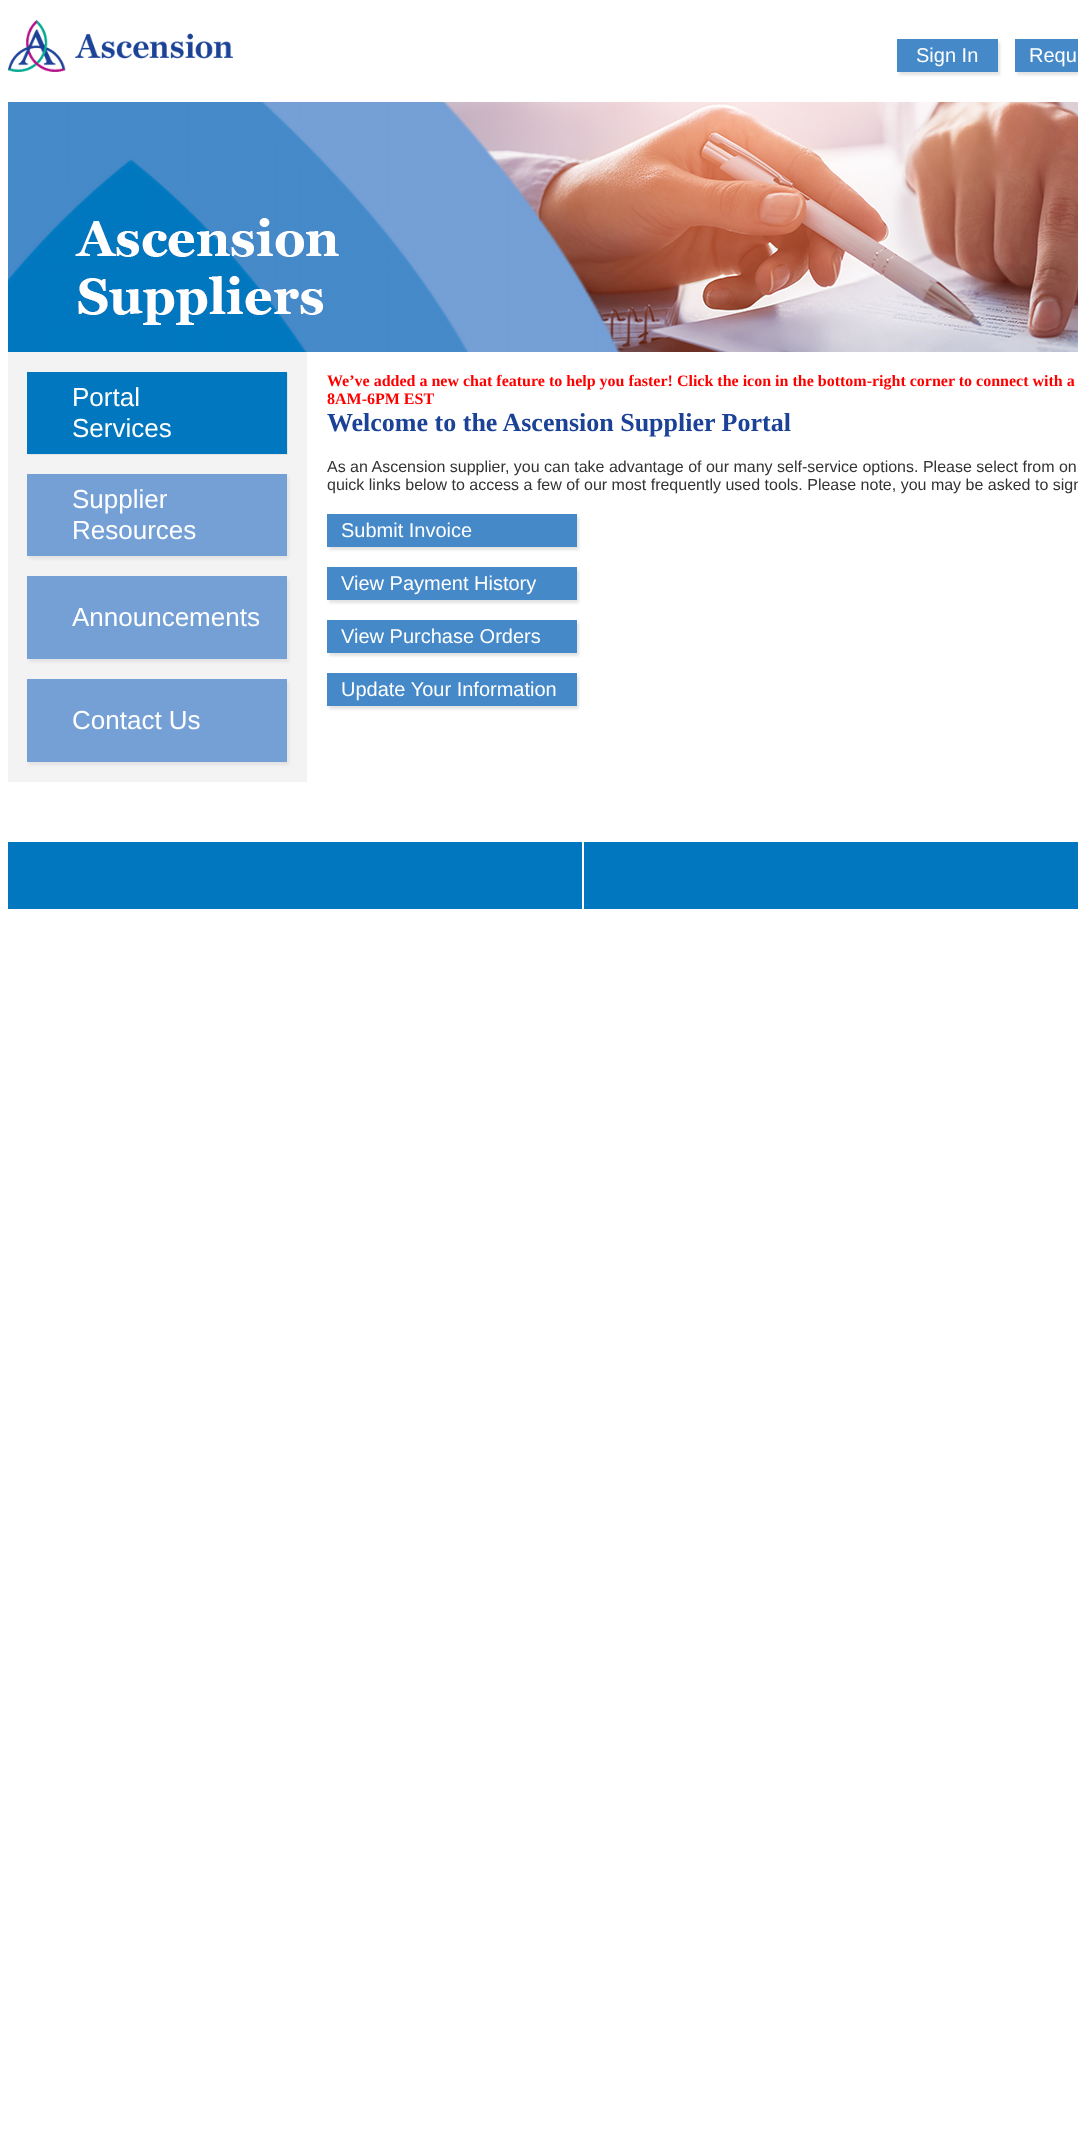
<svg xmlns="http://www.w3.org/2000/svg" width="1078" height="2156">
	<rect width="100%" height="100%" fill="#FFFFFF" />
	<image x="8" y="20" width="225" height="52" href="assets/img1.png" />
	<rect x="899" y="42" width="101" height="33" fill="#E2E2E2" filter="blur(1.5px)" />
	<rect x="897" y="39" width="101" height="33" fill="#4589C8" />
	<text x="916" y="62" font-family="Liberation Sans" font-size="20" fill="#FFFFFF">Sign In</text>
	<rect x="1017" y="42" width="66" height="33" fill="#E2E2E2" filter="blur(1.5px)" />
	<rect x="1015" y="39" width="63" height="33" fill="#4589C8" />
	<text x="1029" y="62" font-family="Liberation Sans" font-size="20" fill="#FFFFFF">Requ</text>
	<image x="8" y="102" width="1070" height="250" href="assets/img2.png" />
	<rect x="8" y="352" width="299" height="430" fill="#F3F3F3" />
	<rect x="28" y="373" width="260" height="82" fill="#E2E2E2" filter="blur(0.5px)" />
	<rect x="27" y="372" width="260" height="82" fill="#0077BE" />
	<g font-family="Liberation Sans" font-size="26" fill="#FFFFFF">
		<text x="72" y="406">Portal</text>
		<text x="72" y="437">Services</text>
	</g>
	<rect x="29" y="477" width="260" height="82" fill="#E2E2E2" filter="blur(1.5px)" />
	<rect x="27" y="474" width="260" height="82" fill="#74A0D6" />
	<g font-family="Liberation Sans" font-size="26" fill="#FFFFFF">
		<text x="72" y="508">Supplier</text>
		<text x="72" y="539">Resources</text>
	</g>
	<rect x="29" y="579" width="260" height="83" fill="#E2E2E2" filter="blur(1.5px)" />
	<rect x="27" y="576" width="260" height="83" fill="#74A0D6" />
	<text x="72" y="626" font-family="Liberation Sans" font-size="26" fill="#FFFFFF">Announcements</text>
	<rect x="29" y="682" width="260" height="83" fill="#E2E2E2" filter="blur(1.5px)" />
	<rect x="27" y="679" width="260" height="83" fill="#74A0D6" />
	<text x="72" y="729" font-family="Liberation Sans" font-size="26" fill="#FFFFFF">Contact Us</text>
	<g font-family="Liberation Serif" font-size="16" font-weight="700" fill="#FF0000">
		<text x="327" y="386">We’ve added a new chat feature to help you faster! Click the icon in the bottom-right corner to connect with a</text>
		<text x="327" y="404">8AM-6PM EST</text>
	</g>
	<text x="327" y="431" font-family="Liberation Serif" font-size="26" font-weight="700" fill="#1B4297">Welcome to the Ascension Supplier Portal</text>
	<g font-family="Liberation Sans" font-size="16" fill="#333333">
		<text x="327" y="472">As an Ascension supplier, you can take advantage of our many self-service options. Please select from on</text>
		<text x="327" y="490">quick links below to access a few of our most frequently used tools. Please note, you may be asked to sign</text>
	</g>
	<rect x="329" y="517" width="250" height="33" fill="#E2E2E2" filter="blur(1.5px)" />
	<rect x="327" y="514" width="250" height="33" fill="#4589C8" />
	<text x="341" y="537" font-family="Liberation Sans" font-size="20" fill="#FFFFFF">Submit Invoice</text>
	<rect x="329" y="570" width="250" height="33" fill="#E2E2E2" filter="blur(1.5px)" />
	<rect x="327" y="567" width="250" height="33" fill="#4589C8" />
	<text x="341" y="590" font-family="Liberation Sans" font-size="20" fill="#FFFFFF">View Payment History</text>
	<rect x="329" y="623" width="250" height="33" fill="#E2E2E2" filter="blur(1.5px)" />
	<rect x="327" y="620" width="250" height="33" fill="#4589C8" />
	<text x="341" y="643" font-family="Liberation Sans" font-size="20" fill="#FFFFFF">View Purchase Orders</text>
	<rect x="329" y="676" width="250" height="33" fill="#E2E2E2" filter="blur(1.5px)" />
	<rect x="327" y="673" width="250" height="33" fill="#4589C8" />
	<text x="341" y="696" font-family="Liberation Sans" font-size="20" fill="#FFFFFF">Update Your Information</text>
	<rect x="8" y="842" width="1070" height="67" fill="#0077BE" />
	<rect x="582" y="842" width="2" height="67" fill="#FFFFFF" />
</svg>
